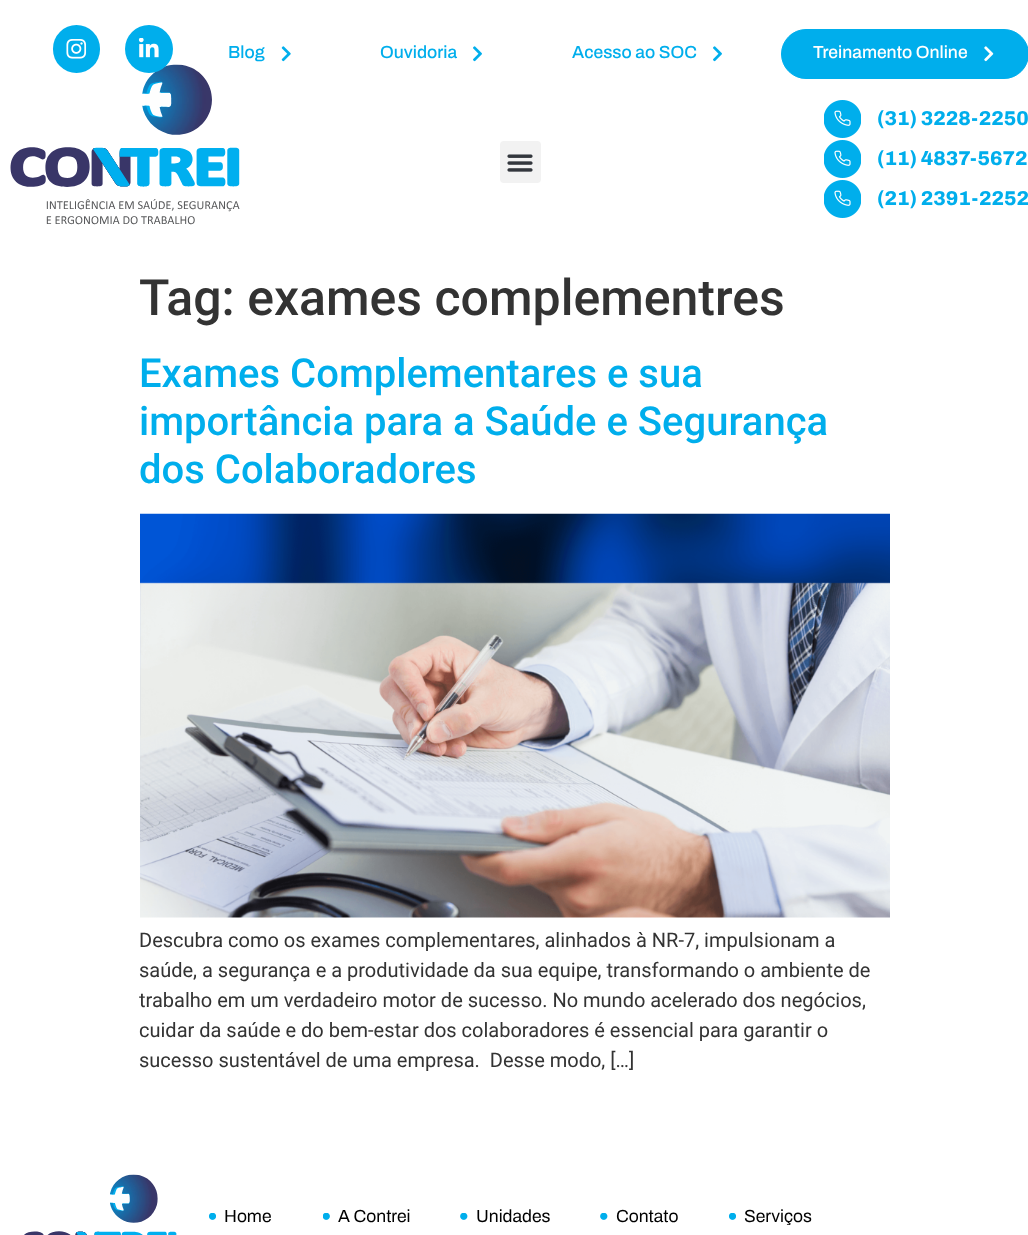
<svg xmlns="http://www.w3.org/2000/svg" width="1028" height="1235">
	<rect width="100%" height="100%" fill="#FFFFFF" />
	<image x="10" y="64" width="230" height="161" href="assets/img6.png" />
	<rect x="53" y="25" width="47" height="48" rx="23.5" fill="#00AEEC" />
	<image x="66" y="39" width="21" height="20" href="assets/img1.png" />
	<circle cx="149" cy="49" r="24" fill="#00AEEC" />
	<image x="138" y="38" width="21" height="20" href="assets/img2.png" />
	<text x="228" y="58" font-family="Archivo" font-size="17.5" font-weight="500" fill="#00AEEC">Blog</text>
	<image x="281" y="46" width="10" height="16" href="assets/img3.png" />
	<text x="380" y="58" font-family="Archivo" font-size="17.5" font-weight="500" fill="#00AEEC">Ouvidoria</text>
	<image x="473" y="46" width="9" height="16" href="assets/img4.png" />
	<text x="572" y="58" font-family="Archivo" font-size="17.5" font-weight="500" fill="#00AEEC">Acesso ao SOC</text>
	<image x="713" y="46" width="9" height="16" href="assets/img4.png" />
	<rect x="781.5" y="29.5" width="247" height="49" rx="24.5" fill="#00AEEC" stroke="#00AEEC" />
	<text x="813" y="58" font-family="Archivo" font-size="17.5" font-weight="500" fill="#FFFFFF">Treinamento Online</text>
	<image x="984" y="46" width="10" height="16" href="assets/img5.png" />
	<rect x="500" y="141" width="41" height="42" rx="4" fill="#F2F2F2" />
	<image x="507" y="154" width="26" height="18" href="assets/img7.png" />
	<image x="824" y="100" width="37" height="38" href="assets/img8.png" />
	<text x="877" y="125" font-family="Archivo" font-size="20" font-weight="800" fill="#00AEEC">(31) 3228-2250</text>
	<image x="824" y="140" width="37" height="38" href="assets/img8.png" />
	<text x="877" y="165" font-family="Archivo" font-size="20" font-weight="800" fill="#00AEEC">(11) 4837-5672</text>
	<image x="824" y="180" width="37" height="38" href="assets/img8.png" />
	<text x="877" y="205" font-family="Archivo" font-size="20" font-weight="800" fill="#00AEEC">(21) 2391-2252</text>
	<text x="139" y="315" font-family="Roboto" font-size="50" font-weight="500" fill="#333333">Tag: exames complementres</text>
	<g font-family="Roboto" font-size="40" font-weight="500" fill="#00AEEC">
		<text x="139" y="387">Exames Complementares e sua</text>
		<text x="139" y="435">importância para a Saúde e Segurança</text>
		<text x="139" y="483">dos Colaboradores</text>
	</g>
	<image x="140" y="513" width="750" height="405" href="assets/img9.png" />
	<g font-family="Roboto" font-size="20" fill="#333333">
		<text x="139" y="947">Descubra como os exames complementares, alinhados à NR-7, impulsionam a</text>
		<text x="139" y="977">saúde, a segurança e a produtividade da sua equipe, transformando o ambiente de</text>
		<text x="139" y="1007">trabalho em um verdadeiro motor de sucesso. No mundo acelerado dos negócios,</text>
		<text x="139" y="1037">cuidar da saúde e do bem-estar dos colaboradores é essencial para garantir o</text>
		<text x="139" y="1067" xml:space="preserve">sucesso sustentável de uma empresa.  Desse modo, […]</text>
	</g>
	<image x="24" y="1174" width="153" height="61" href="assets/img10.png" />
	<image x="209" y="1213" width="7" height="7" href="assets/img11.png" />
	<text x="224" y="1222" font-family="Archivo" font-size="17.5" fill="#000000">Home</text>
	<image x="323" y="1213" width="7" height="7" href="assets/img12.png" />
	<text x="338" y="1222" font-family="Archivo" font-size="17.5" fill="#000000">A Contrei</text>
	<image x="460" y="1213" width="8" height="7" href="assets/img13.png" />
	<text x="476" y="1222" font-family="Archivo" font-size="17.5" fill="#000000">Unidades</text>
	<image x="600" y="1213" width="8" height="7" href="assets/img13.png" />
	<text x="616" y="1222" font-family="Archivo" font-size="17.5" fill="#000000">Contato</text>
	<image x="729" y="1213" width="7" height="7" href="assets/img11.png" />
	<text x="744" y="1222" font-family="Archivo" font-size="17.5" fill="#000000">Serviços</text>
</svg>
